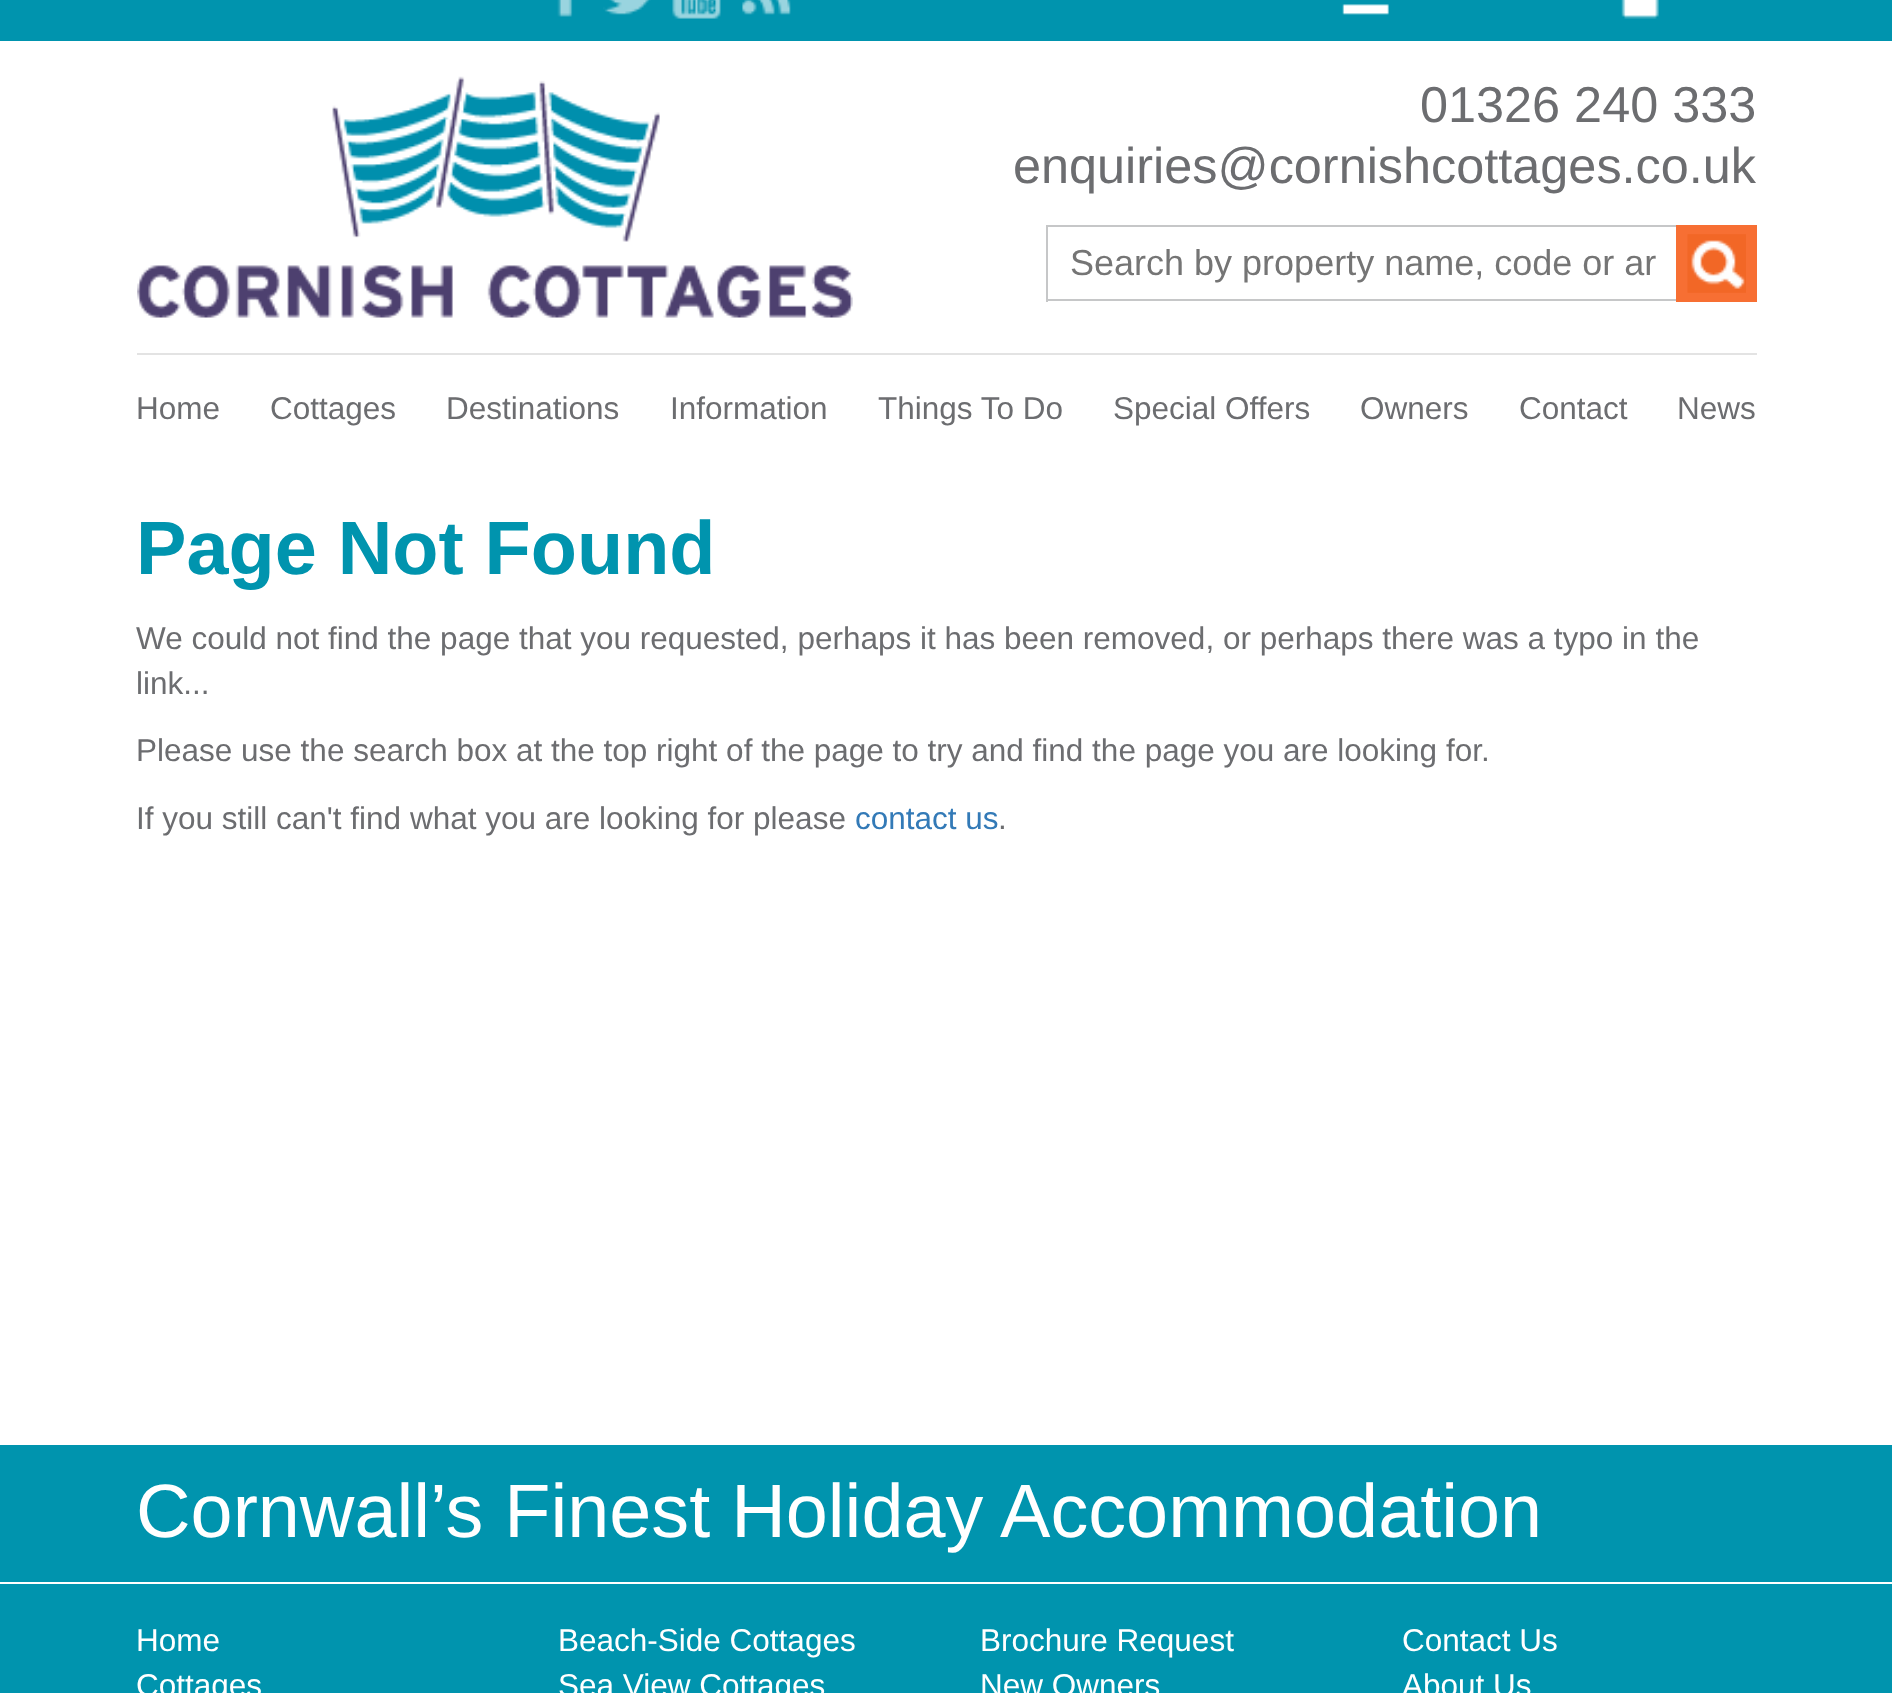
<svg xmlns="http://www.w3.org/2000/svg" width="1892" height="1693">
	<rect width="100%" height="100%" fill="#FFFFFF" />
	<rect x="0" y="0" width="1892" height="41" fill="#0094AE" />
	<image x="557" y="0" width="16" height="17" href="assets/img1.png" />
	<image x="603" y="0" width="48" height="15" href="assets/img2.png" />
	<image x="672" y="0" width="49" height="19" href="assets/img3.png" />
	<image x="742" y="0" width="49" height="15" href="assets/img4.png" />
	<image x="1342" y="4" width="47" height="11" href="assets/img5.png" />
	<image x="1621" y="0" width="38" height="19" href="assets/img6.png" />
	<image x="137" y="76" width="716" height="242" href="assets/img7.png" />
	<g font-family="Liberation Sans" font-size="50.4" fill="#6C6D70">
		<text x="1420" y="122">01326 240 333</text>
		<text x="1013" y="183">enquiries@cornishcottages.co.uk</text>
	</g>
	<rect x="1046" y="225" width="630" height="2" fill="#C6C7C8" />
	<rect x="1046" y="299" width="630" height="2" fill="#C6C7C8" />
	<rect x="1046" y="225" width="2" height="77" fill="#C6C7C8" />
	<text x="1070" y="275" font-family="Liberation Sans" font-size="36" fill="#757575">Search by property name, code or ar</text>
	<rect x="1676" y="225" width="81" height="77" fill="#F76F33" />
	<image x="1687" y="234" width="59" height="59" href="assets/img8.png" />
	<rect x="137" y="353" width="1620" height="2" fill="#E3E3E3" />
	<g font-family="Liberation Sans" font-size="31.5" fill="#6C6D70">
		<text x="136" y="419">Home</text>
		<text x="270" y="419">Cottages</text>
		<text x="446" y="419">Destinations</text>
		<text x="670" y="419">Information</text>
		<text x="878" y="419">Things To Do</text>
		<text x="1113" y="419">Special Offers</text>
		<text x="1360" y="419">Owners</text>
		<text x="1519" y="419">Contact</text>
		<text x="1677" y="419">News</text>
	</g>
	<text x="136" y="574" font-family="Liberation Sans" font-size="75.6" font-weight="700" fill="#0094AE">Page Not Found</text>
	<g font-family="Liberation Sans" font-size="31.5" fill="#6C6D70">
		<text x="136" y="649">We could not find the page that you requested, perhaps it has been removed, or perhaps there was a typo in the</text>
		<text x="136" y="694">link...</text>
		<text x="136" y="761">Please use the search box at the top right of the page to try and find the page you are looking for.</text>
		<text x="136" y="829">If you still can't find what you are looking for please</text>
	</g>
	<text x="855" y="829" font-family="Liberation Sans" font-size="31.5" fill="#337AB7">contact us</text>
	<text x="998" y="829" font-family="Liberation Sans" font-size="31.5" fill="#6C6D70">.</text>
	<rect x="0" y="1445" width="1892" height="137" fill="#0094AE" />
	<text x="136" y="1537" font-family="Liberation Sans" font-size="75.6" fill="#FFFFFF">Cornwall’s Finest Holiday Accommodation</text>
	<rect x="0" y="1584" width="1892" height="109" fill="#0094AE" />
	<g font-family="Liberation Sans" font-size="31.5" fill="#FFFFFF">
		<text x="136" y="1651">Home</text>
		<text x="136" y="1696">Cottages</text>
		<text x="558" y="1651">Beach-Side Cottages</text>
		<text x="558" y="1696">Sea View Cottages</text>
		<text x="980" y="1651">Brochure Request</text>
		<text x="980" y="1696">New Owners</text>
		<text x="1402" y="1651">Contact Us</text>
		<text x="1402" y="1696">About Us</text>
	</g>
</svg>
